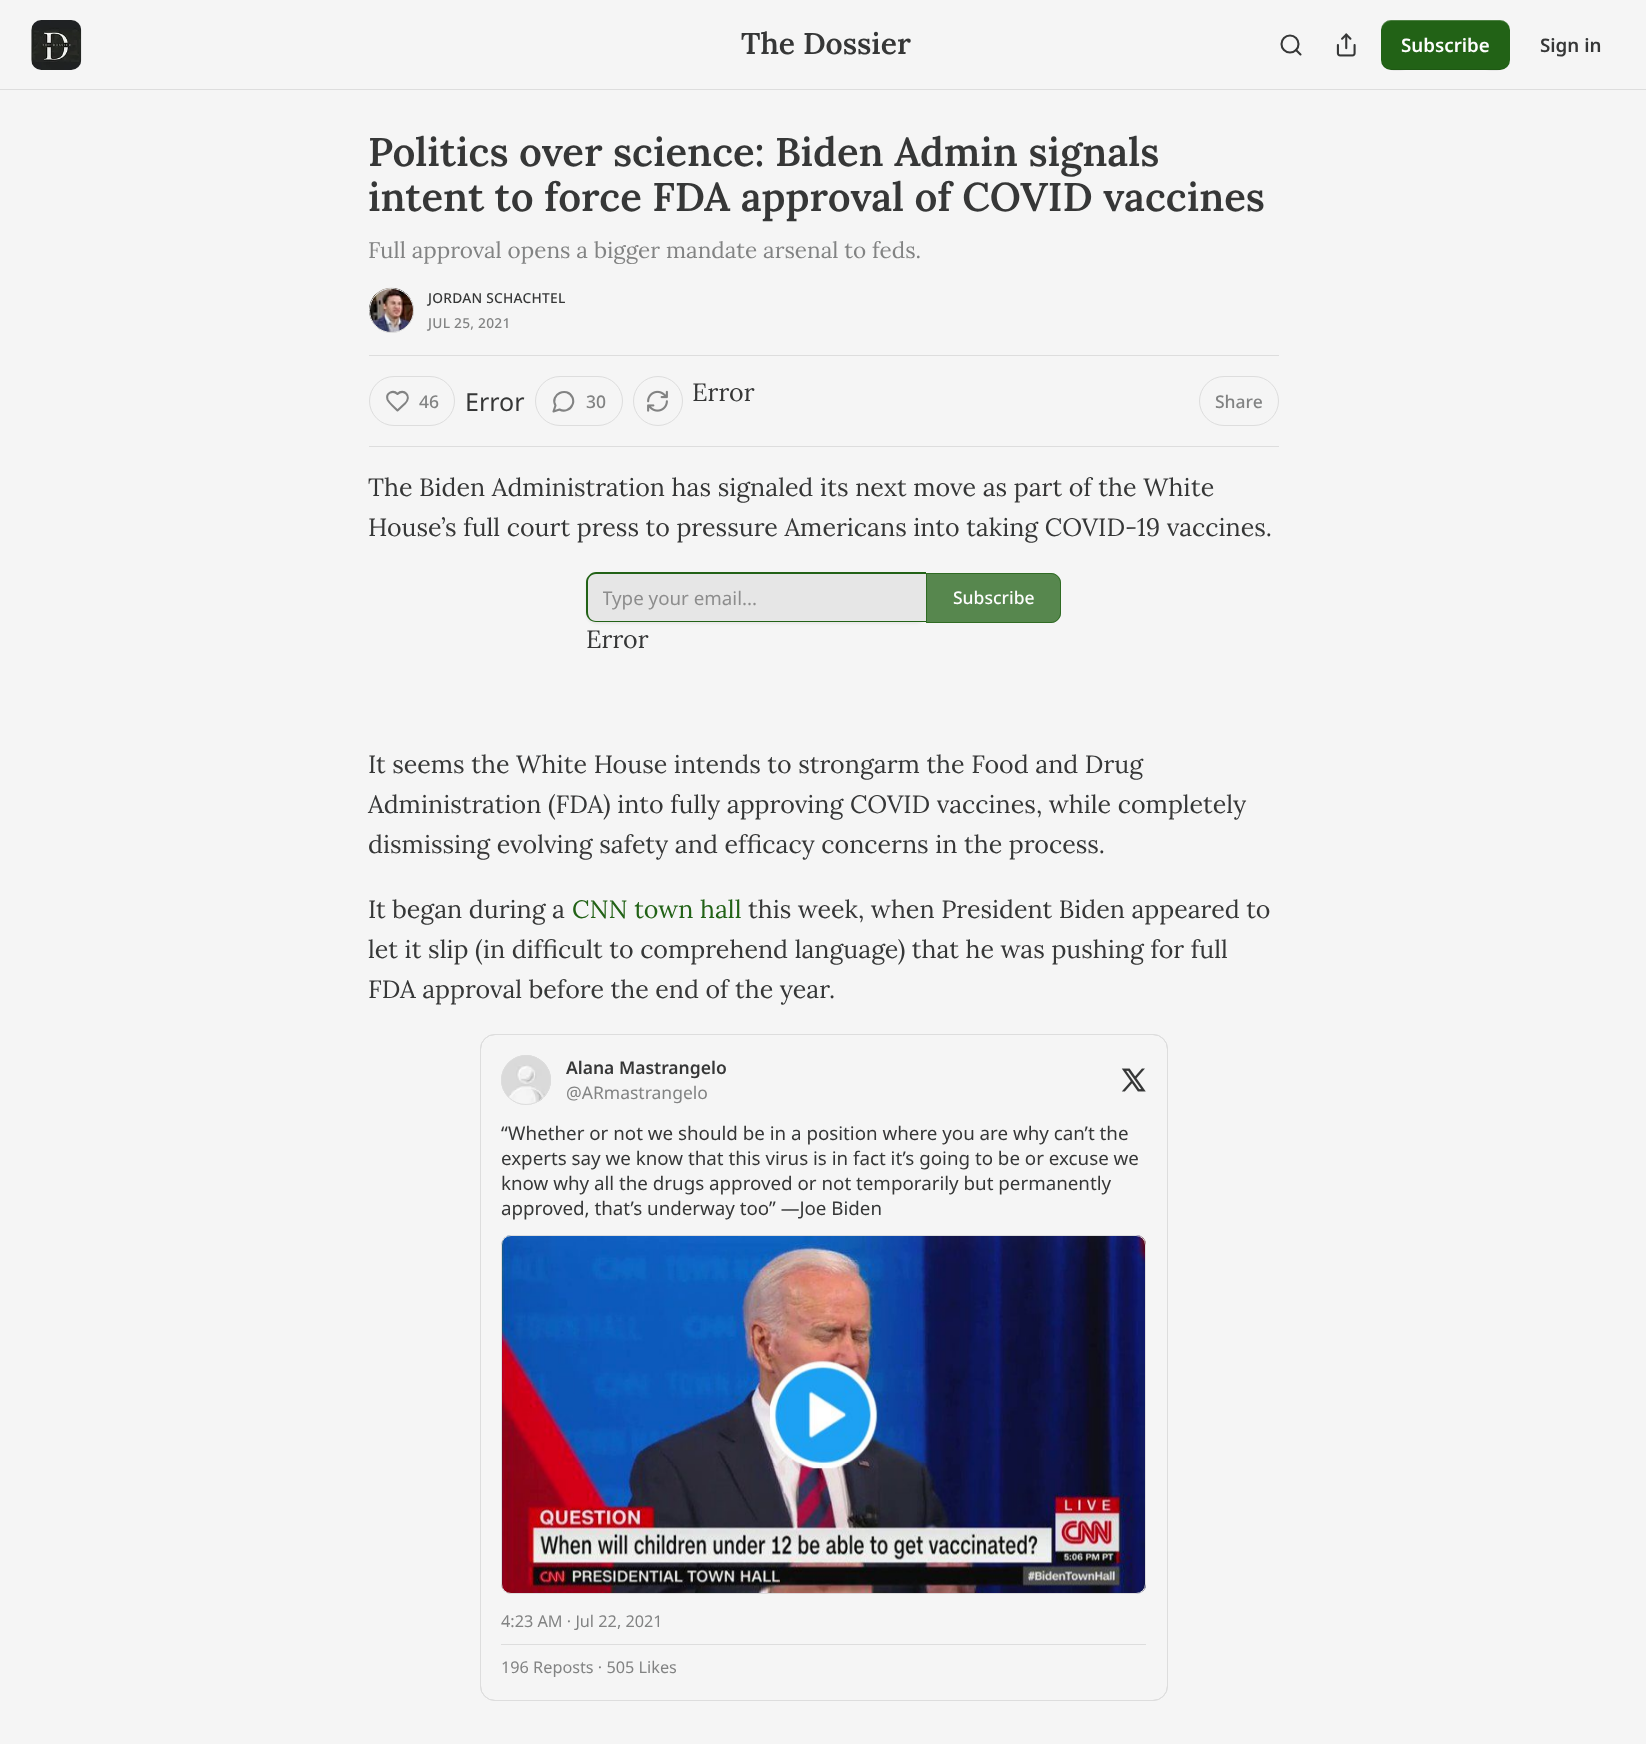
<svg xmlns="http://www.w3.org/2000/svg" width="1646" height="1744">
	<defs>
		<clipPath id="clip1"><rect x="603" y="585" width="308" height="25" /></clipPath>
	</defs>
	<rect width="100%" height="100%" fill="#F5F5F5" />
	<rect x="0" y="89" width="1646" height="1" fill="#DDDDDD" />
	<rect x="31" y="20" width="50" height="50" rx="10" fill="#FFFFFF" />
	<image x="31" y="20" width="51" height="50" href="assets/img1.png" />
	<text x="741" y="54" font-family="Lora" font-size="30" font-weight="600" fill="#363737">The Dossier</text>
	<circle cx="1290" cy="44" r="8.5" fill="none" stroke="#363737" stroke-width="2.1" />
	<path d="M1300.5 54.5L1296 50" fill="none" stroke="#363737" stroke-width="2.1" stroke-linecap="round" stroke-linejoin="round" />
	<image x="1336" y="33" width="20" height="24" href="assets/img2.png" />
	<rect x="1381" y="20" width="129" height="50" rx="10" fill="#226216" />
	<path d="M1381 59C1381 74 1399 70 1409 70H1482C1492 70 1510 74 1510 59C1510 64 1506 69 1500 69H1391C1386 69 1381 64 1381 59Z" fill="#000000" fill-opacity="0.1" />
	<path d="M1391 21H1500C1506 21 1510 26 1510 31C1510 16 1492 20 1482 20H1409C1399 20 1381 16 1381 31C1381 26 1386 21 1391 21Z" fill="#FFFFFF" fill-opacity="0.2" />
	<text x="1401" y="52" font-family="Noto Sans" font-size="18.75" font-weight="600" fill="#FDFDFD">Subscribe</text>
	<text x="1540" y="52" font-family="Noto Sans" font-size="18.75" font-weight="600" fill="#363737">Sign in</text>
	<g font-family="Lora" font-size="40" font-weight="600" fill="#363737">
		<text x="368" y="166">Politics over science: Biden Admin signals</text>
		<text x="368" y="211">intent to force FDA approval of COVID vaccines</text>
	</g>
	<text x="368" y="258" font-family="Lora" font-size="22.5" fill="#828383">Full approval opens a bigger mandate arsenal to feds.</text>
	<circle cx="391.5" cy="310.5" r="22" fill="none" stroke="#DDDDDD" />
	<image x="369" y="287" width="45" height="46" href="assets/img3.png" />
	<circle cx="391.5" cy="310.5" r="22" fill="none" stroke="#DDDDDD" />
	<text x="428" y="303" font-family="Noto Sans" font-size="13.75" font-weight="500" letter-spacing="0.25" fill="#363737">JORDAN SCHACHTEL</text>
	<text x="428" y="328" font-family="Noto Sans" font-size="13.75" font-weight="500" letter-spacing="0.25" fill="#828383">JUL 25, 2021</text>
	<rect x="369" y="355" width="910" height="1" fill="#DDDDDD" />
	<rect x="369" y="446" width="910" height="1" fill="#DDDDDD" />
	<rect x="369.5" y="376.5" width="85" height="49" rx="24.5" fill="none" stroke="#DDDDDD" />
	<path d="M405 403.5C412.5 396 403.5 388 397.5 394C393 389.5 385.5 393 387.5 399.5C388.5 402.5 395 408 397.5 410.5Z" fill="none" stroke="#828383" stroke-width="2.1" stroke-linecap="round" stroke-linejoin="round" />
	<text x="419" y="408" font-family="Noto Sans" font-size="17.5" font-weight="500" fill="#828383">46</text>
	<text x="465" y="411" font-family="Noto Sans" font-size="25" fill="#363737">Error</text>
	<rect x="535.5" y="376.5" width="87" height="49" rx="24.5" fill="none" stroke="#DDDDDD" />
	<path d="M559.5 409.5C564 412 570 410 572 405.5C573.5 403 573.5 400 572.5 397.5C567 386 549.5 394.5 555.5 405.5L553.5 411.5Z" fill="none" stroke="#828383" stroke-width="2.1" stroke-linecap="round" stroke-linejoin="round" />
	<text x="586" y="408" font-family="Noto Sans" font-size="17.5" font-weight="500" fill="#828383">30</text>
	<circle cx="658" cy="401" r="24.5" fill="none" stroke="#DDDDDD" />
	<image x="647" y="390" width="21" height="22" href="assets/img4.png" />
	<text x="692" y="401" font-family="Lora" font-size="25" fill="#363737">Error</text>
	<rect x="1199.5" y="376.5" width="79" height="49" rx="24.5" fill="none" stroke="#DDDDDD" />
	<text x="1215" y="408" font-family="Noto Sans" font-size="17.5" font-weight="500" fill="#828383">Share</text>
	<g font-family="Lora" font-size="25" fill="#363737">
		<text x="368" y="496">The Biden Administration has signaled its next move as part of the White</text>
		<text x="368" y="536">House’s full court press to pressure Americans into taking COVID-19 vaccines.</text>
	</g>
	<rect x="586" y="574" width="340" height="50" rx="10" fill="#000000" fill-opacity="0.05" filter="blur(1px)" />
	<path d="M597 574H926V621H597C592 621 588 617 588 612V583C588 578 592 574 597 574Z" fill="#E6E6E6" />
	<path d="M596 572H926V622H596C591 622 586 618 586 612V582C586 577 591 572 596 572ZM596 574H926V621H596C591 621 588 617 588 612V582C588 578 591 574 596 574Z" fill="#226216" fill-rule="evenodd" />
	<g clip-path="url(#clip1)">
		<text x="602" y="605" font-family="Noto Sans" font-size="18.75" fill="#8D8D8D">Type your email...</text>
	</g>
	<path d="M926 573H1051C1056.5 573 1061 577.5 1061 583V613C1061 618.5 1056.5 623 1051 623H926Z" fill="#226216" fill-opacity="0.75" />
	<path d="M926.5 573.5H1051C1056 573.5 1060.5 578 1060.5 583V613C1060.5 618 1056 622.5 1051 622.5H926.5Z" fill="none" stroke="#226216" stroke-opacity="0.75" />
	<text x="953" y="604" font-family="Noto Sans" font-size="17.5" font-weight="500" fill="#FDFDFD">Subscribe</text>
	<g font-family="Lora" font-size="25" fill="#363737">
		<text x="586" y="648">Error</text>
		<text x="368" y="773">It seems the White House intends to strongarm the Food and Drug</text>
		<text x="368" y="813">Administration (FDA) into fully approving COVID vaccines, while completely</text>
		<text x="368" y="853">dismissing evolving safety and efficacy concerns in the process.</text>
		<text x="368" y="918">It began during a</text>
	</g>
	<text x="572" y="918" font-family="Lora" font-size="25" fill="#226216">CNN town hall</text>
	<g font-family="Lora" font-size="25" fill="#363737">
		<text x="748" y="918">this week, when President Biden appeared to</text>
		<text x="368" y="958">let it slip (in difficult to comprehend language) that he was pushing for full</text>
		<text x="368" y="998">FDA approval before the end of the year.</text>
	</g>
	<rect x="480.5" y="1034.5" width="687" height="666" rx="14.5" fill="none" stroke="#DDDDDD" />
	<rect x="480.5" y="1034.5" width="687" height="666" rx="14.5" fill="none" stroke="#DDDDDD" />
	<circle cx="526" cy="1080" r="24.5" fill="none" stroke="#DDDDDD" />
	<image x="501" y="1055" width="50" height="50" href="assets/img5.png" />
	<circle cx="526" cy="1080" r="24.5" fill="none" stroke="#DDDDDD" />
	<text x="566" y="1074" font-family="Noto Sans" font-size="17.5" font-weight="600" fill="#363737">Alana Mastrangelo</text>
	<text x="566" y="1099" font-family="Noto Sans" font-size="17.5" fill="#828383">@ARmastrangelo</text>
	<image x="1121" y="1068" width="25" height="24" href="assets/img6.png" />
	<g font-family="Noto Sans" font-size="18.75" fill="#363737">
		<text x="501" y="1140">“Whether or not we should be in a position where you are why can’t the</text>
		<text x="501" y="1165">experts say we know that this virus is in fact it’s going to be or excuse we</text>
		<text x="501" y="1190">know why all the drugs approved or not temporarily but permanently</text>
		<text x="501" y="1215">approved, that’s underway too” —Joe Biden</text>
	</g>
	<image x="501" y="1235" width="645" height="359" href="assets/img7.png" />
	<rect x="501.5" y="1235.5" width="644" height="358" rx="9.5" fill="none" stroke="#DDDDDD" />
	<text x="501" y="1627" font-family="Noto Sans" font-size="16.25" fill="#828383">4:23 AM · Jul 22, 2021</text>
	<rect x="501" y="1644" width="645" height="1" fill="#DDDDDD" />
	<text x="501" y="1673" font-family="Noto Sans" font-size="16.25" fill="#828383">196 Reposts · 505 Likes</text>
</svg>
